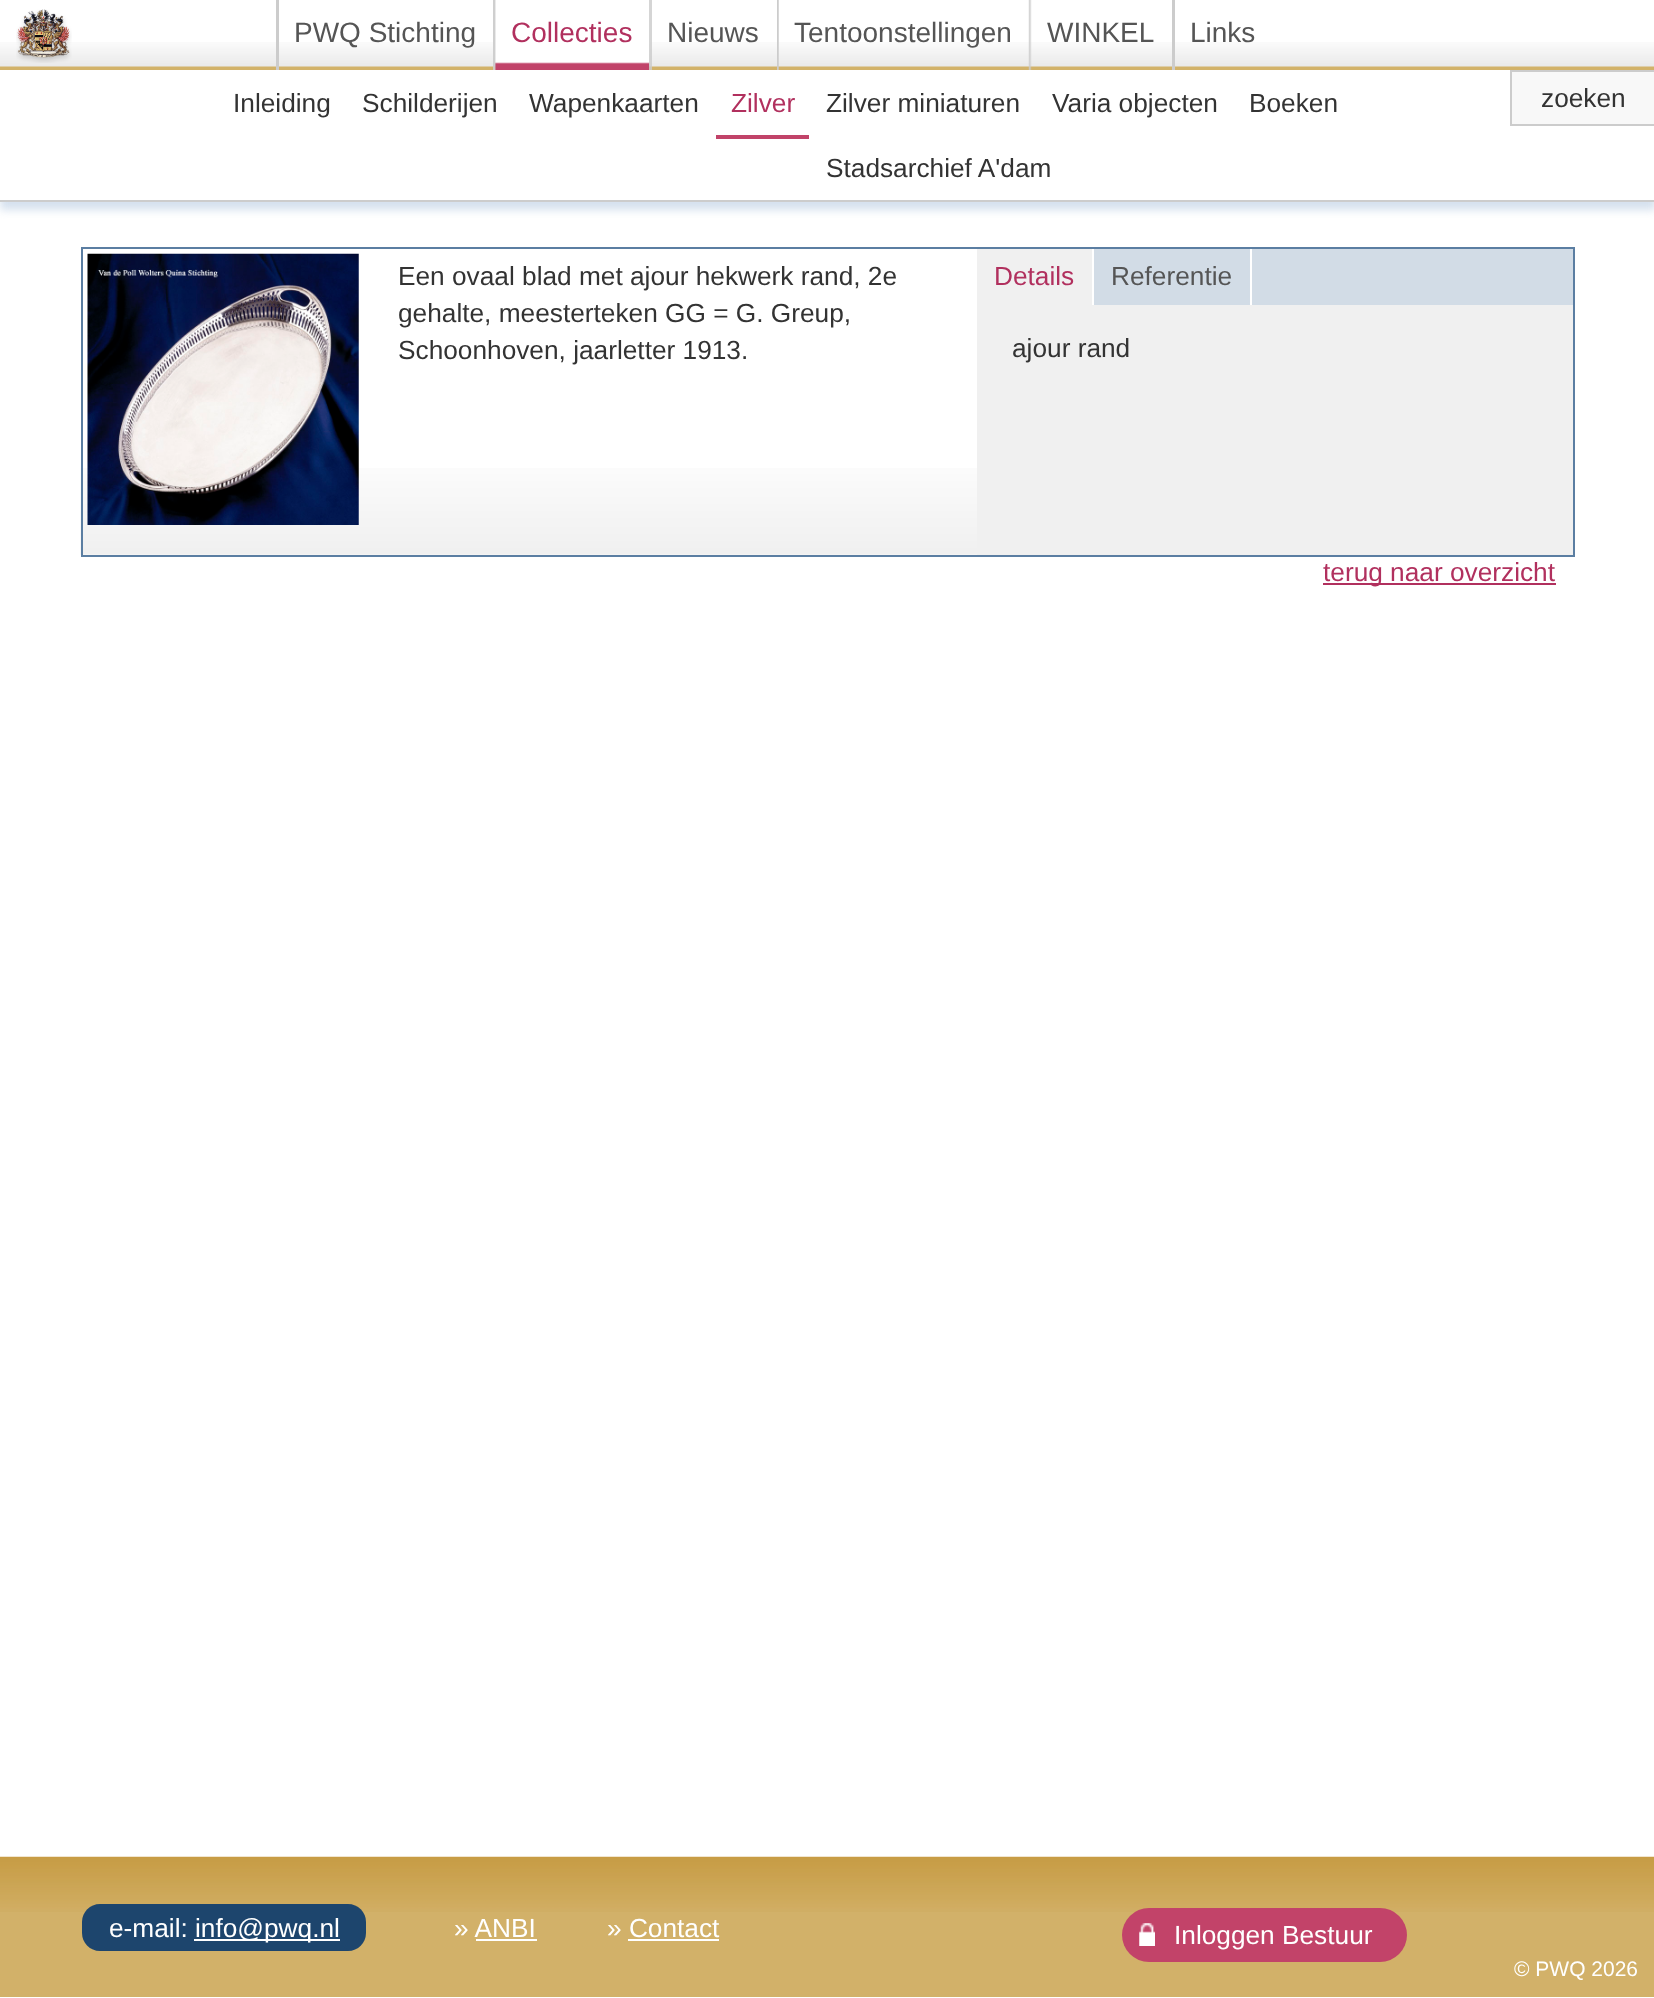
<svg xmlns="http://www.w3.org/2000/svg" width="1654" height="1998">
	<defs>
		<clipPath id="clip1"><rect x="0" y="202" width="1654" height="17" /></clipPath>
	</defs>
	<rect width="100%" height="100%" fill="#FFFFFF" />
	<image x="0" y="42" width="1654" height="28" href="assets/img1.png" />
	<image x="16" y="9" width="56" height="54" href="assets/img2.png" />
	<rect x="276" y="0" width="3" height="70" fill="#CCCCCC" />
	<text x="294" y="42" font-family="Liberation Sans" font-size="28" fill="#555555">PWQ Stichting</text>
	<rect x="493" y="0" width="3" height="70" fill="#CCCCCC" fill-opacity="0.94" />
	<image x="495" y="0" width="155" height="70" href="assets/img3.png" />
	<text x="511" y="42" font-family="Liberation Sans" font-size="28" fill="#B1305E">Collecties</text>
	<rect x="649" y="0" width="3" height="70" fill="#CBCBCB" fill-opacity="0.81" />
	<text x="667" y="42" font-family="Liberation Sans" font-size="28" fill="#555555">Nieuws</text>
	<image x="777" y="0" width="2" height="70" href="assets/img4.png" />
	<text x="794" y="42" font-family="Liberation Sans" font-size="28" fill="#555555">Tentoonstellingen</text>
	<image x="1028" y="0" width="4" height="70" href="assets/img5.png" />
	<text x="1047" y="42" font-family="Liberation Sans" font-size="28" fill="#555555">WINKEL</text>
	<rect x="1172" y="0" width="3" height="70" fill="#CCCCCC" />
	<text x="1190" y="42" font-family="Liberation Sans" font-size="28" fill="#555555">Links</text>
	<g clip-path="url(#clip1)">
		<rect x="0" y="79" width="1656" height="131" fill="#D5E1EE" filter="blur(4.5px)" />
	</g>
	<rect x="0" y="200" width="1654" height="2" fill="#CCCCCC" />
	<g font-family="Liberation Sans" font-size="26.25" fill="#333333">
		<text x="233" y="112">Inleiding</text>
		<text x="362" y="112">Schilderijen</text>
		<text x="529" y="112">Wapenkaarten</text>
	</g>
	<rect x="716" y="135" width="93" height="4" fill="#C14369" />
	<text x="731" y="112" font-family="Liberation Sans" font-size="26.25" fill="#B1305E">Zilver</text>
	<g font-family="Liberation Sans" font-size="26.25" fill="#333333">
		<text x="826" y="112">Zilver miniaturen</text>
		<text x="1052" y="112">Varia objecten</text>
		<text x="1249" y="112">Boeken</text>
		<text x="826" y="177">Stadsarchief A'dam</text>
	</g>
	<rect x="1511" y="71" width="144" height="54" fill="#F8F8F8" stroke="#CCCCCC" stroke-width="2" />
	<text x="1541" y="107" font-family="Liberation Sans" font-size="26.25" fill="#333333">zoeken</text>
	<image x="80" y="468" width="897" height="87" href="assets/img6.png" />
	<rect x="82" y="248" width="1492" height="308" fill="none" stroke="#5B7EA2" stroke-width="2" />
	<image x="87" y="253" width="272" height="272" href="assets/img7.png" />
	<g font-family="Liberation Sans" font-size="26.25" fill="#333333">
		<text x="398" y="285">Een ovaal blad met ajour hekwerk rand, 2e</text>
		<text x="398" y="322">gehalte, meesterteken GG = G. Greup,</text>
		<text x="398" y="359">Schoonhoven, jaarletter 1913.</text>
	</g>
	<rect x="1094" y="249" width="479" height="56" fill="#D2DCE6" />
	<rect x="977" y="249" width="115" height="56" fill="#F0F0F0" />
	<text x="994" y="285" font-family="Liberation Sans" font-size="26.25" fill="#B1305E">Details</text>
	<rect x="1250" y="249" width="2" height="56" fill="#FFFFFF" />
	<text x="1111" y="285" font-family="Liberation Sans" font-size="26.25" fill="#555555">Referentie</text>
	<rect x="977" y="305" width="596" height="250" fill="#F0F0F0" />
	<text x="1012" y="357" font-family="Liberation Sans" font-size="26.25" fill="#333333">ajour rand</text>
	<rect x="1323" y="583" width="233" height="2" fill="#B1305E" />
	<text x="1323" y="581" font-family="Liberation Sans" font-size="26.25" fill="#B1305E">terug naar overzicht</text>
	<rect x="0" y="1912" width="1654" height="85" fill="#D2B169" />
	<image x="0" y="1856" width="1654" height="56" href="assets/img8.png" />
	<path d="M100 1904H194V1951H100C90 1951 82 1943 82 1933V1922C82 1912 90 1904 100 1904Z" fill="#1D456D" />
	<text x="109" y="1937" font-family="Liberation Sans" font-size="26.25" fill="#FFFFFF">e-mail:</text>
	<path d="M194 1904H348C358 1904 366 1912 366 1922V1933C366 1943 358 1951 348 1951H194Z" fill="#1D456D" />
	<rect x="194" y="1939" width="146" height="2" fill="#FFFFFF" />
	<g font-family="Liberation Sans" font-size="26.25" fill="#FFFFFF">
		<text x="195" y="1937">info@pwq.nl</text>
		<text x="454" y="1937">» ANBI</text>
	</g>
	<rect x="476" y="1939" width="61" height="2" fill="#FFFFFF" />
	<text x="607" y="1937" font-family="Liberation Sans" font-size="26.25" fill="#FFFFFF">» Contact</text>
	<rect x="628" y="1939" width="91" height="2" fill="#FFFFFF" />
	<rect x="1122" y="1908" width="285" height="54" rx="27" fill="#C24369" />
	<image x="1139" y="1923" width="16" height="23" href="assets/img9.png" />
	<text x="1174" y="1944" font-family="Liberation Sans" font-size="26.25" fill="#FFFFFF">Inloggen Bestuur</text>
	<text x="1514" y="1976" font-family="Liberation Sans" font-size="21" fill="#FFFFFF">© PWQ 2026</text>
</svg>
